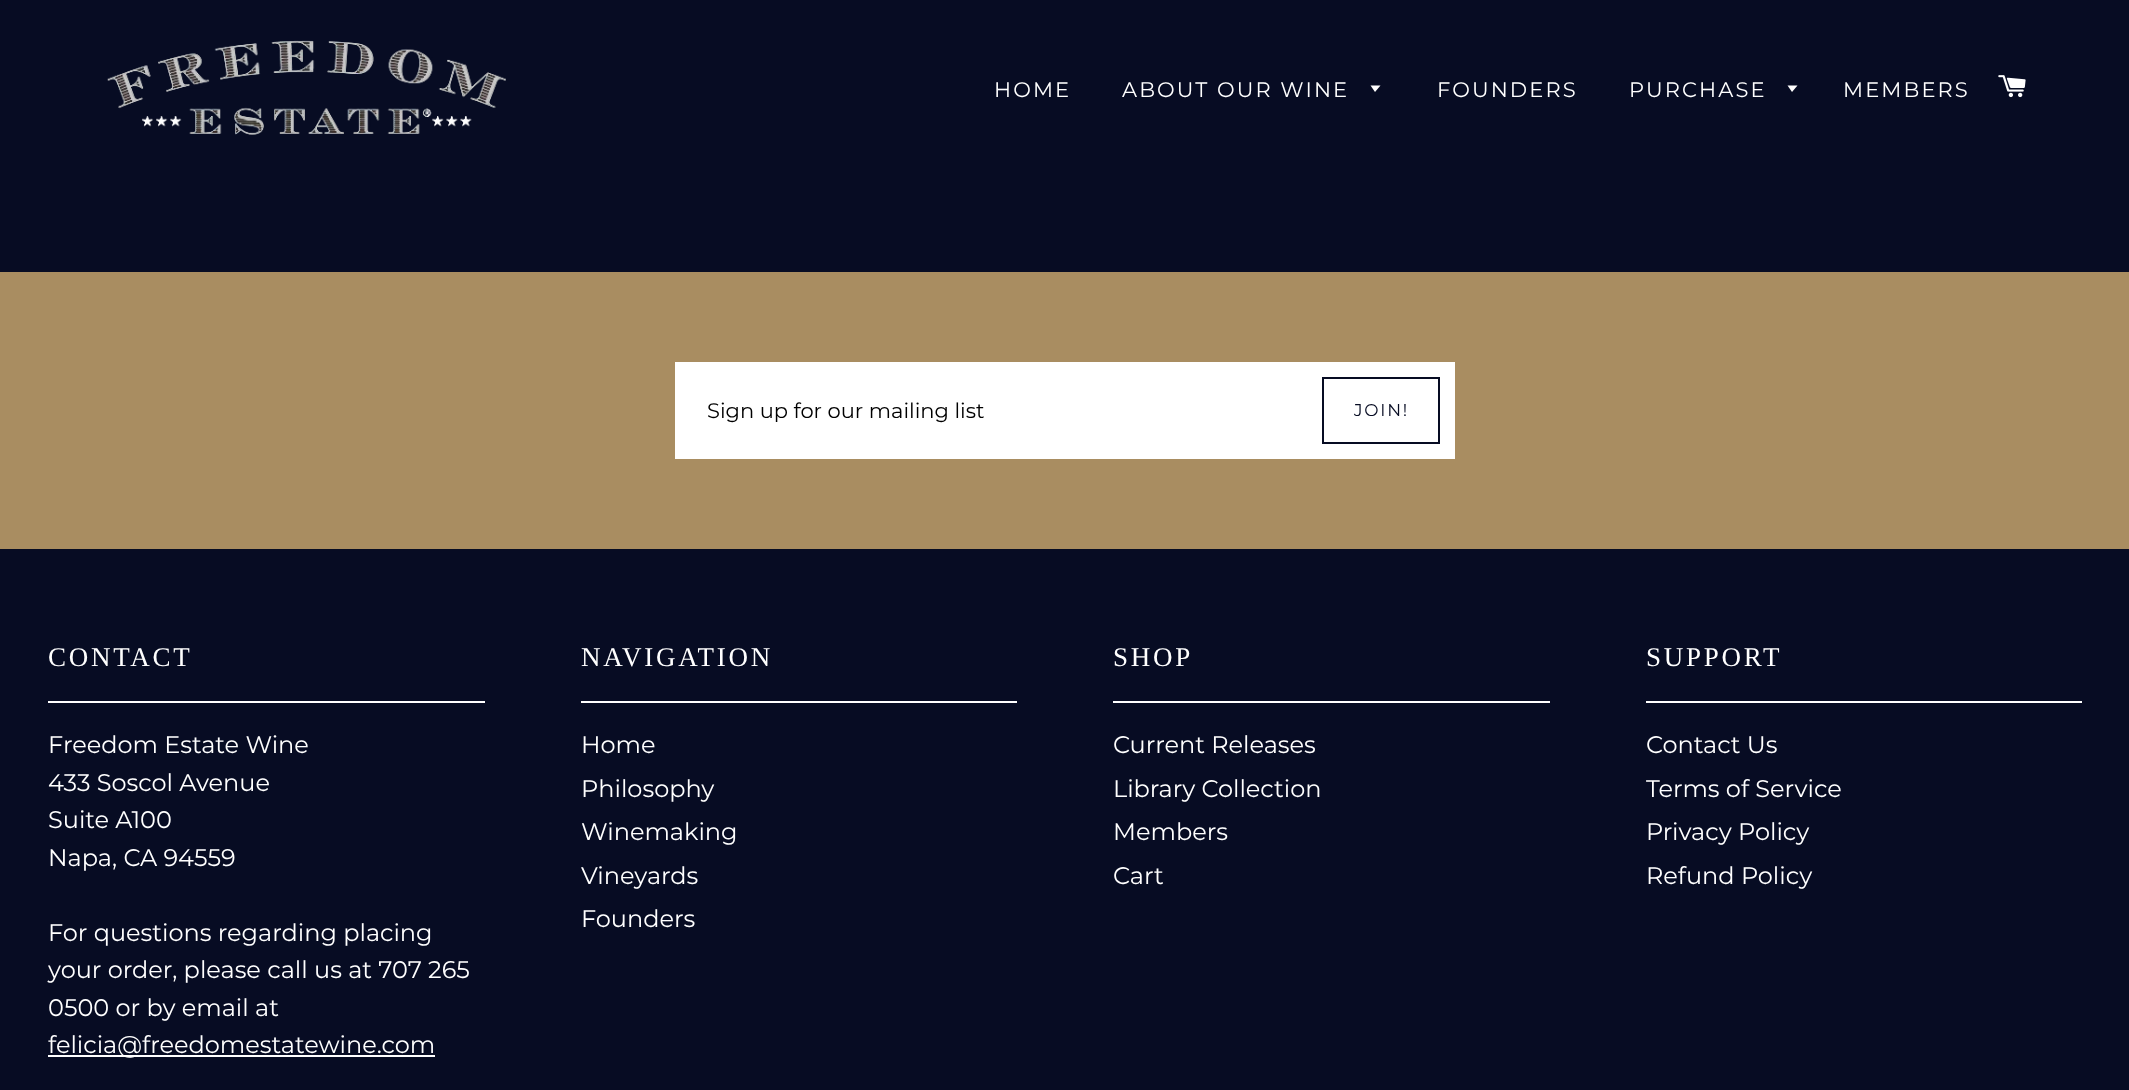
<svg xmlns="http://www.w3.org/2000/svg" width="2129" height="1090">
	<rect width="100%" height="100%" fill="#070C23" />
	<image x="107" y="40" width="399" height="95" href="assets/img1.png" />
	<g font-family="Montserrat" font-size="21" font-weight="100" letter-spacing="2.1" fill="#FFFFFF">
		<text x="994" y="97">HOME</text>
		<text x="1122" y="97">ABOUT OUR WINE</text>
	</g>
	<path d="M1370.5 85.5L1375 92L1380.5 85.5Z" fill="#FFFFFF" />
	<g font-family="Montserrat" font-size="21" font-weight="100" letter-spacing="2.1" fill="#FFFFFF">
		<text x="1437" y="97">FOUNDERS</text>
		<text x="1629" y="97">PURCHASE</text>
	</g>
	<path d="M1787.5 85.5L1792 92L1797.5 85.5Z" fill="#FFFFFF" />
	<text x="1843" y="97" font-family="Montserrat" font-size="21" font-weight="100" letter-spacing="2.1" fill="#FFFFFF">MEMBERS</text>
	<image x="1998" y="75" width="28" height="23" href="assets/img2.png" />
	<rect x="0" y="272" width="2129" height="277" fill="#A98D61" />
	<rect x="675" y="362" width="780" height="97" fill="#FFFFFF" />
	<text x="707" y="418" font-family="Montserrat" font-size="21" font-weight="100" fill="#000000">Sign up for our mailing list</text>
	<rect x="1323" y="378" width="116" height="65" fill="none" stroke="#070C23" stroke-width="2" />
	<text x="1354" y="416" font-family="Montserrat" font-size="17" font-weight="100" letter-spacing="1.75" fill="#070C23">JOIN!</text>
	<rect x="48" y="701" width="437" height="2" fill="#FFFFFF" />
	<text x="48" y="666" font-family="Liberation Serif" font-size="27" letter-spacing="2.75" fill="#FFFFFF">CONTACT</text>
	<g font-family="Montserrat" font-size="24" font-weight="100" fill="#FFFFFF">
		<text x="48" y="753">Freedom Estate Wine</text>
		<text x="48" y="791">433 Soscol Avenue</text>
		<text x="48" y="828">Suite A100</text>
		<text x="48" y="866">Napa, CA 94559</text>
		<text x="48" y="941">For questions regarding placing</text>
		<text x="48" y="978">your order, please call us at 707 265</text>
		<text x="48" y="1016">0500 or by email at</text>
	</g>
	<rect x="48" y="1055" width="387" height="2" fill="#FFFFFF" />
	<text x="48" y="1053" font-family="Montserrat" font-size="24" font-weight="100" fill="#FFFFFF">felicia@freedomestatewine.com</text>
	<rect x="581" y="701" width="436" height="2" fill="#FFFFFF" />
	<text x="581" y="666" font-family="Liberation Serif" font-size="27" letter-spacing="2.75" fill="#FFFFFF">NAVIGATION</text>
	<g font-family="Montserrat" font-size="24" font-weight="100" fill="#FFFFFF">
		<text x="581" y="753">Home</text>
		<text x="581" y="797">Philosophy</text>
		<text x="581" y="840">Winemaking</text>
		<text x="581" y="884">Vineyards</text>
		<text x="581" y="927">Founders</text>
	</g>
	<rect x="1113" y="701" width="437" height="2" fill="#FFFFFF" />
	<text x="1113" y="666" font-family="Liberation Serif" font-size="27" letter-spacing="2.75" fill="#FFFFFF">SHOP</text>
	<g font-family="Montserrat" font-size="24" font-weight="100" fill="#FFFFFF">
		<text x="1113" y="753">Current Releases</text>
		<text x="1113" y="797">Library Collection</text>
		<text x="1113" y="840">Members</text>
		<text x="1113" y="884">Cart</text>
	</g>
	<rect x="1646" y="701" width="436" height="2" fill="#FFFFFF" />
	<text x="1646" y="666" font-family="Liberation Serif" font-size="27" letter-spacing="2.75" fill="#FFFFFF">SUPPORT</text>
	<g font-family="Montserrat" font-size="24" font-weight="100" fill="#FFFFFF">
		<text x="1646" y="753">Contact Us</text>
		<text x="1646" y="797">Terms of Service</text>
		<text x="1646" y="840">Privacy Policy</text>
		<text x="1646" y="884">Refund Policy</text>
	</g>
</svg>
